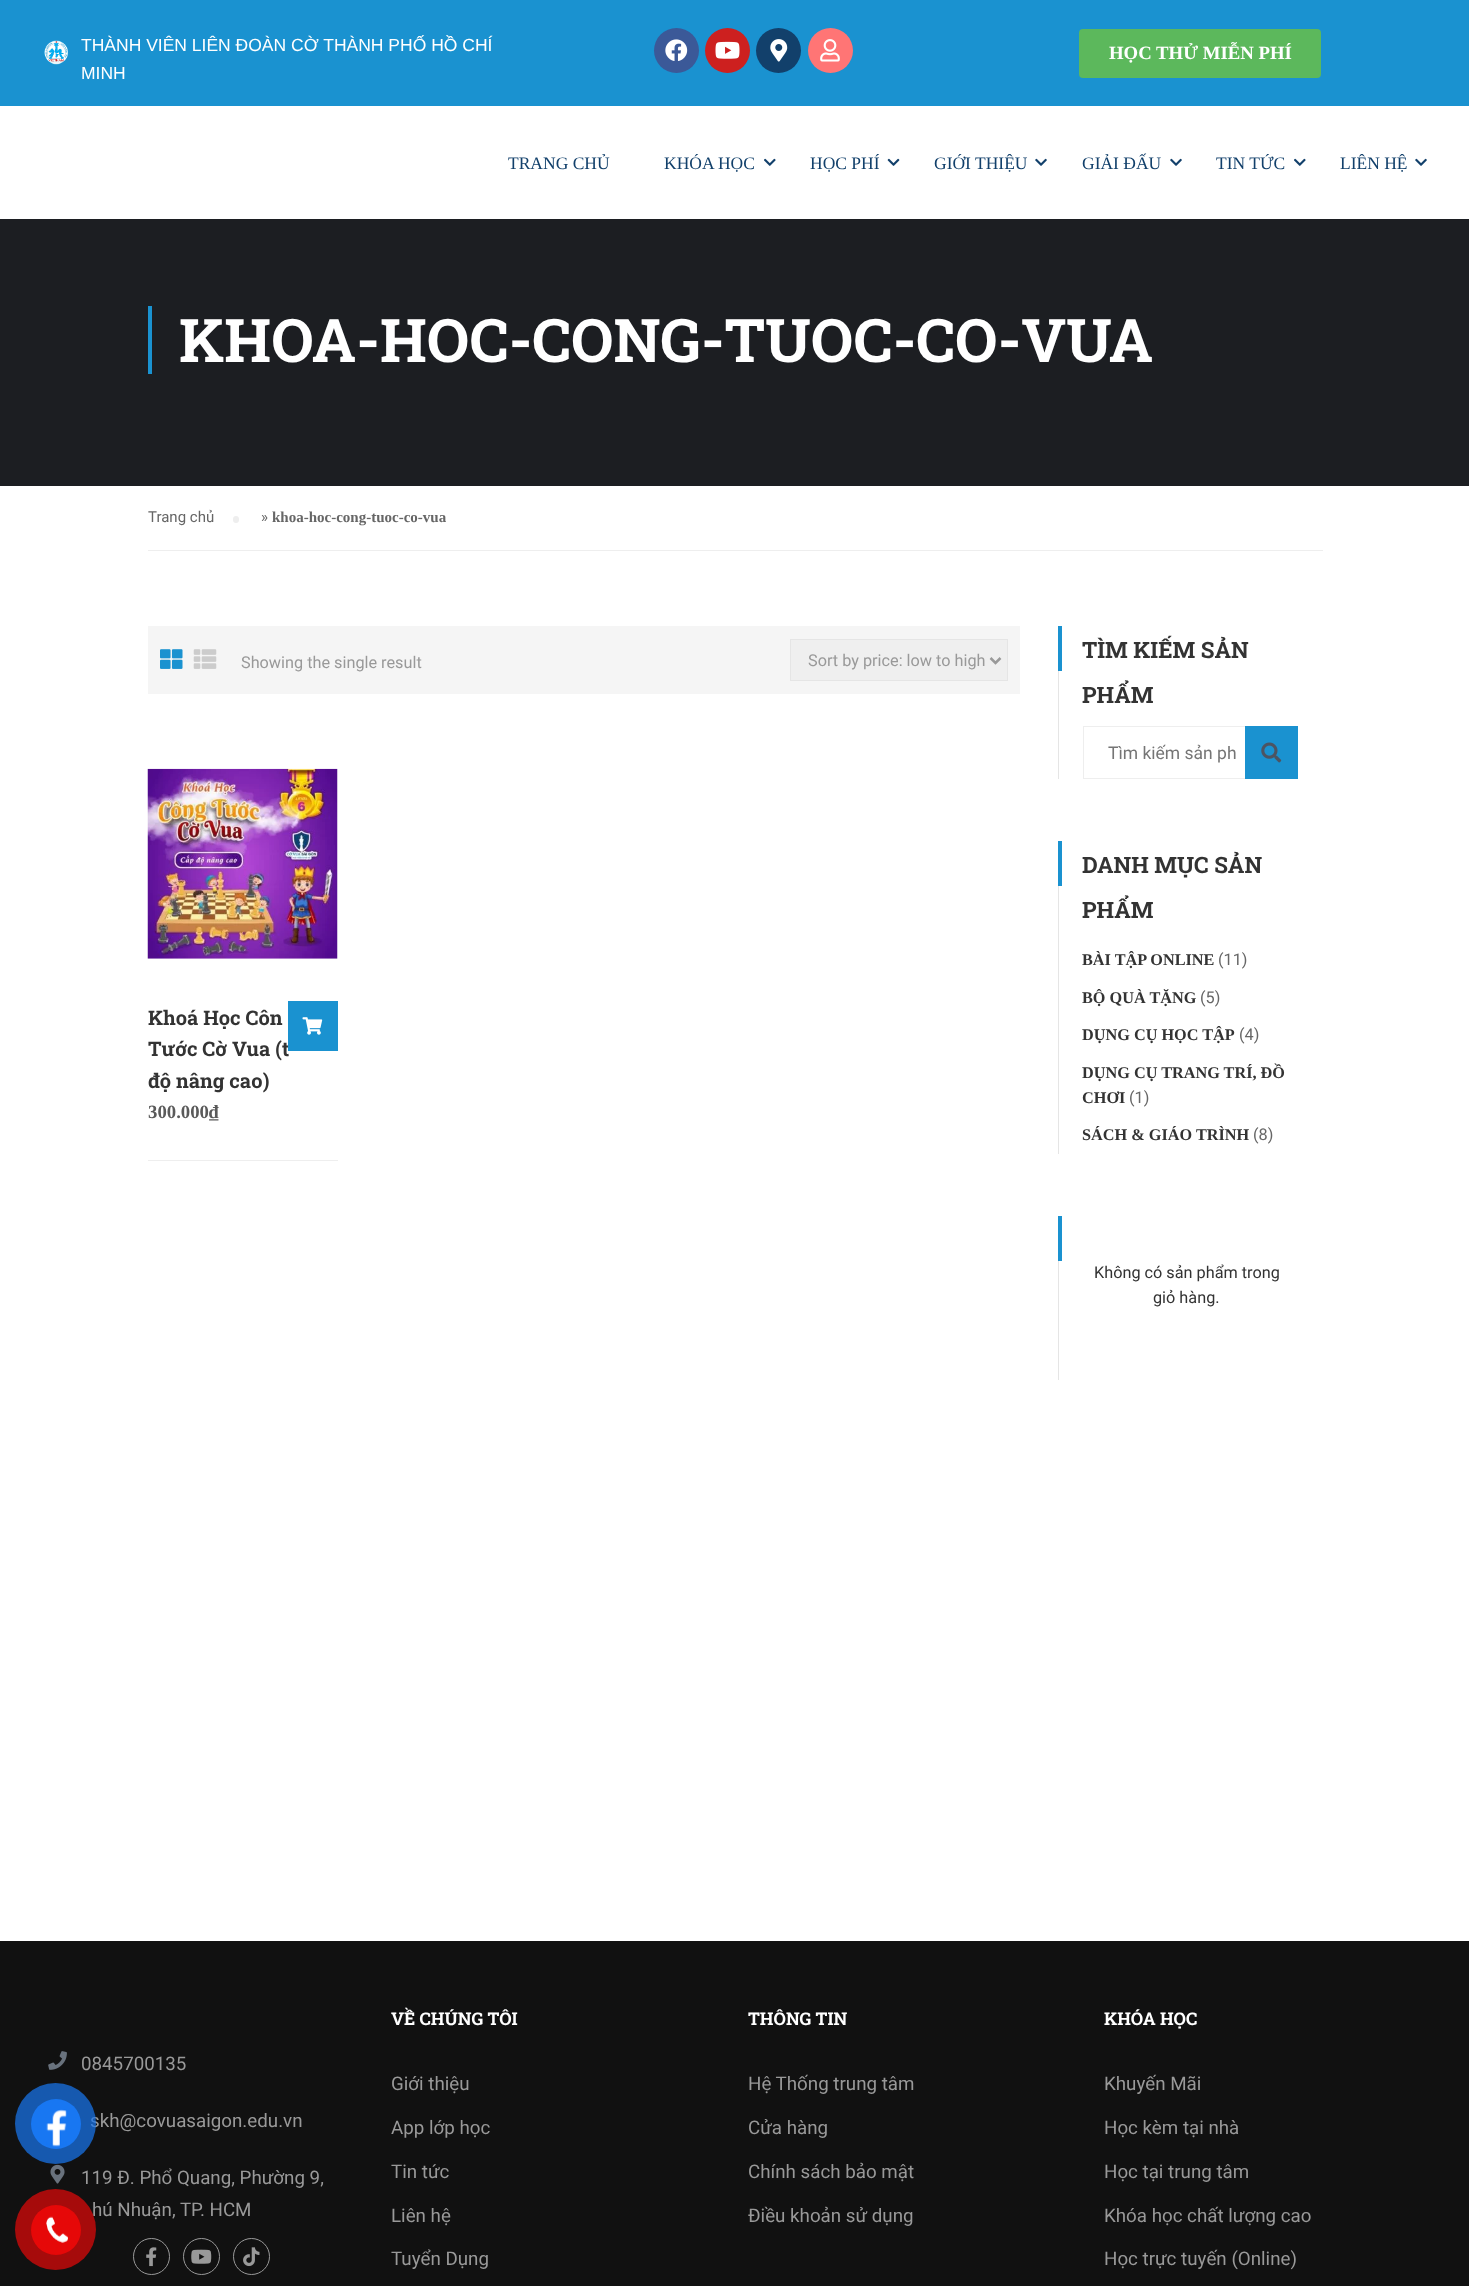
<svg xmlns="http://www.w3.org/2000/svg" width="1469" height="2286">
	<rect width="100%" height="100%" fill="#FFFFFF" />
	<rect x="0" y="1941" width="1469" height="345" fill="#111111" />
	<text x="90" y="2127" font-family="Roboto" font-size="18.75" fill="#999999">skh@covuasaigon.edu.vn</text>
	<circle cx="55.5" cy="2123.5" r="40.5" fill="#1877F2" fill-opacity="0.7" />
	<circle cx="56" cy="2124" r="25" fill="#1877F2" />
	<image x="46" y="2109" width="21" height="38" href="assets/img1.png" />
	<text x="92" y="2216" font-family="Roboto" font-size="18.75" fill="#999999">hú Nhuận, TP. HCM</text>
	<circle cx="55.5" cy="2229.5" r="40.5" fill="#E60808" fill-opacity="0.7" />
	<circle cx="56" cy="2230" r="25" fill="#E60808" />
	<image x="46" y="2216" width="22" height="27" href="assets/img2.png" />
	<rect x="0" y="0" width="1469" height="106" fill="#1A92D0" />
	<image x="44" y="40" width="24" height="25" href="assets/img3.png" />
	<g font-family="Liberation Sans" font-size="17.5" fill="#FFFFFF">
		<text x="81" y="51">THÀNH VIÊN LIÊN ĐOÀN CỜ THÀNH PHỐ HỒ CHÍ</text>
		<text x="81" y="79">MINH</text>
	</g>
	<circle cx="676.5" cy="50.5" r="22.5" fill="#3B5998" />
	<image x="665" y="39" width="23" height="22" href="assets/img4.png" />
	<circle cx="727.5" cy="50.5" r="22.5" fill="#CD201F" />
	<image x="715" y="41" width="25" height="18" href="assets/img5.png" />
	<circle cx="778.5" cy="50.5" r="22.5" fill="#12406B" />
	<image x="770" y="39" width="18" height="23" href="assets/img6.png" />
	<circle cx="830.5" cy="50.5" r="22.5" fill="#FF7575" />
	<image x="820" y="39" width="20" height="23" href="assets/img7.png" />
	<rect x="1079" y="29" width="242" height="49" rx="4" fill="#5CB85C" />
	<text x="1109" y="59" font-family="Liberation Serif" font-size="18.75" font-weight="700" fill="#FFFFFF">HỌC THỬ MIỄN PHÍ</text>
	<g font-family="Liberation Serif" font-size="17.5" fill="#12406B">
		<text x="508" y="169">TRANG CHỦ</text>
		<text x="664" y="169">KHÓA HỌC</text>
	</g>
	<image x="764" y="158" width="12" height="8" href="assets/img8.png" />
	<text x="810" y="169" font-family="Liberation Serif" font-size="17.5" fill="#12406B">HỌC PHÍ</text>
	<image x="887" y="158" width="13" height="8" href="assets/img9.png" />
	<text x="934" y="169" font-family="Liberation Serif" font-size="17.5" fill="#12406B">GIỚI THIỆU</text>
	<image x="1035" y="158" width="12" height="8" href="assets/img10.png" />
	<text x="1082" y="169" font-family="Liberation Serif" font-size="17.5" fill="#12406B">GIẢI ĐẤU</text>
	<image x="1170" y="158" width="12" height="8" href="assets/img10.png" />
	<text x="1216" y="169" font-family="Liberation Serif" font-size="17.5" fill="#12406B">TIN TỨC</text>
	<image x="1294" y="158" width="12" height="8" href="assets/img8.png" />
	<text x="1340" y="169" font-family="Liberation Serif" font-size="17.5" fill="#12406B">LIÊN HỆ</text>
	<image x="1415" y="158" width="12" height="8" href="assets/img10.png" />
	<rect x="0" y="219" width="1469" height="267" fill="#1C1E22" />
	<rect x="148" y="306" width="4" height="68" fill="#1A92D0" />
	<text x="179" y="362" font-family="Roboto Slab" font-size="60" font-weight="700" fill="#FFFFFF">KHOA-HOC-CONG-TUOC-CO-VUA</text>
	<rect x="148" y="550" width="1175" height="1" fill="#EEEEEE" />
	<text x="148" y="522" font-family="Roboto" font-size="15" fill="#666666">Trang chủ</text>
	<rect x="233" y="516" width="6" height="7" rx="3" fill="#EEEEEE" />
	<text x="261" y="522" font-family="Roboto" font-size="15" fill="#666666">»</text>
	<text x="272" y="522" font-family="Liberation Serif" font-size="15" font-weight="700" fill="#666666">khoa-hoc-cong-tuoc-co-vua</text>
	<rect x="148" y="626" width="872" height="68" fill="#F5F5F5" />
	<image x="160" y="649" width="23" height="20" href="assets/img11.png" />
	<image x="193" y="649" width="24" height="20" href="assets/img12.png" />
	<text x="241" y="668" font-family="Roboto" font-size="16.25" fill="#999999">Showing the single result</text>
	<rect x="790.5" y="639.5" width="217" height="41" fill="#EFEFEF" stroke="#E5E5E5" />
	<path d="M990.5 658L995.5 663L1000.5 658" fill="none" stroke="#999999" stroke-width="2.5" />
	<text x="808" y="666" font-family="Roboto" font-size="16.25" fill="#999999">Sort by price: low to high</text>
	<rect x="148" y="1160" width="190" height="1" fill="#EEEEEE" />
	<image x="147" y="768" width="191" height="191" href="assets/img13.png" />
	<g font-family="Roboto Slab" font-size="20" font-weight="700" fill="#333333">
		<text x="148" y="1025">Khoá Học Côn</text>
		<text x="148" y="1056">Tước Cờ Vua (t</text>
		<text x="148" y="1088">độ nâng cao)</text>
	</g>
	<rect x="288" y="1001" width="50" height="50" fill="#1A92D0" />
	<image x="302" y="1017" width="21" height="18" href="assets/img14.png" />
	<text x="148" y="1118" font-family="Liberation Serif" font-size="18.75" font-weight="700" fill="#5A5A5A">300.000₫</text>
	<rect x="1058" y="626" width="4" height="45" fill="#1A92D0" />
	<g font-family="Roboto Slab" font-size="22.5" font-weight="700" fill="#333333">
		<text x="1082" y="658">TÌM KIẾM SẢN</text>
		<text x="1082" y="703">PHẨM</text>
	</g>
	<rect x="1058" y="671" width="1" height="108" fill="#E5E5E5" />
	<rect x="1083.5" y="726.5" width="214" height="52" fill="none" stroke="#EEEEEE" />
	<text x="1108" y="759" font-family="Roboto" font-size="17.5" fill="#757575">Tìm kiếm sản ph</text>
	<rect x="1245" y="726" width="53" height="53" fill="#1A92D0" />
	<image x="1261" y="742" width="21" height="21" href="assets/img15.png" />
	<rect x="1058" y="841" width="4" height="45" fill="#1A92D0" />
	<g font-family="Roboto Slab" font-size="22.5" font-weight="700" fill="#333333">
		<text x="1082" y="873">DANH MỤC SẢN</text>
		<text x="1082" y="918">PHẨM</text>
	</g>
	<rect x="1058" y="886" width="1" height="268" fill="#E5E5E5" />
	<text x="1082" y="965" font-family="Liberation Serif" font-size="16.25" font-weight="700" fill="#333333">BÀI TẬP ONLINE</text>
	<text x="1218" y="965" font-family="Roboto" font-size="16.25" fill="#666666">(11)</text>
	<text x="1082" y="1003" font-family="Liberation Serif" font-size="16.25" font-weight="700" fill="#333333">BỘ QUÀ TẶNG</text>
	<text x="1200" y="1003" font-family="Roboto" font-size="16.25" fill="#666666">(5)</text>
	<text x="1082" y="1040" font-family="Liberation Serif" font-size="16.25" font-weight="700" fill="#333333">DỤNG CỤ HỌC TẬP</text>
	<text x="1239" y="1040" font-family="Roboto" font-size="16.25" fill="#666666">(4)</text>
	<g font-family="Liberation Serif" font-size="16.25" font-weight="700" fill="#333333">
		<text x="1082" y="1078">DỤNG CỤ TRANG TRÍ, ĐỒ</text>
		<text x="1082" y="1103">CHƠI</text>
	</g>
	<text x="1129" y="1103" font-family="Roboto" font-size="16.25" fill="#666666">(1)</text>
	<text x="1082" y="1140" font-family="Liberation Serif" font-size="16.25" font-weight="700" fill="#333333">SÁCH &amp; GIÁO TRÌNH</text>
	<text x="1253" y="1140" font-family="Roboto" font-size="16.25" fill="#666666">(8)</text>
	<rect x="1058" y="1216" width="4" height="45" fill="#1A92D0" />
	<rect x="1058" y="1261" width="1" height="119" fill="#E5E5E5" />
	<g font-family="Roboto" font-size="16.25" fill="#333333">
		<text x="1094" y="1278">Không có sản phẩm trong</text>
		<text x="1153" y="1303">giỏ hàng.</text>
	</g>
	<image x="48" y="2051" width="19" height="19" href="assets/img16.png" />
	<text x="81" y="2070" font-family="Roboto" font-size="18.75" fill="#999999">0845700135</text>
	<image x="50" y="2164" width="15" height="20" href="assets/img17.png" />
	<text x="81" y="2184" font-family="Roboto" font-size="18.75" fill="#999999">119 Đ. Phổ Quang, Phường 9,</text>
	<circle cx="151.5" cy="2256.5" r="18" fill="none" stroke="#999999" />
	<image x="146" y="2247" width="11" height="20" href="assets/img18.png" />
	<circle cx="201.5" cy="2256.5" r="18" fill="none" stroke="#999999" />
	<image x="191" y="2249" width="21" height="15" href="assets/img19.png" />
	<circle cx="251.5" cy="2256.5" r="18" fill="none" stroke="#999999" />
	<image x="243" y="2247" width="17" height="20" href="assets/img20.png" />
	<text x="391" y="2025" font-family="Roboto Slab" font-size="17.5" font-weight="700" fill="#FFFFFF">VỀ CHÚNG TÔI</text>
	<g font-family="Roboto" font-size="18.75" fill="#999999">
		<text x="391" y="2090">Giới thiệu</text>
		<text x="391" y="2134">App lớp học</text>
		<text x="391" y="2178">Tin tức</text>
		<text x="391" y="2222">Liên hệ</text>
		<text x="391" y="2265">Tuyển Dụng</text>
	</g>
	<text x="748" y="2025" font-family="Roboto Slab" font-size="17.5" font-weight="700" fill="#FFFFFF">THÔNG TIN</text>
	<g font-family="Roboto" font-size="18.75" fill="#999999">
		<text x="748" y="2090">Hệ Thống trung tâm</text>
		<text x="748" y="2134">Cửa hàng</text>
		<text x="748" y="2178">Chính sách bảo mật</text>
		<text x="748" y="2222">Điều khoản sử dụng</text>
	</g>
	<text x="1104" y="2025" font-family="Roboto Slab" font-size="17.5" font-weight="700" fill="#FFFFFF">KHÓA HỌC</text>
	<g font-family="Roboto" font-size="18.75" fill="#999999">
		<text x="1104" y="2090">Khuyến Mãi</text>
		<text x="1104" y="2134">Học kèm tại nhà</text>
		<text x="1104" y="2178">Học tại trung tâm</text>
		<text x="1104" y="2222">Khóa học chất lượng cao</text>
		<text x="1104" y="2265">Học trực tuyến (Online)</text>
	</g>
</svg>
